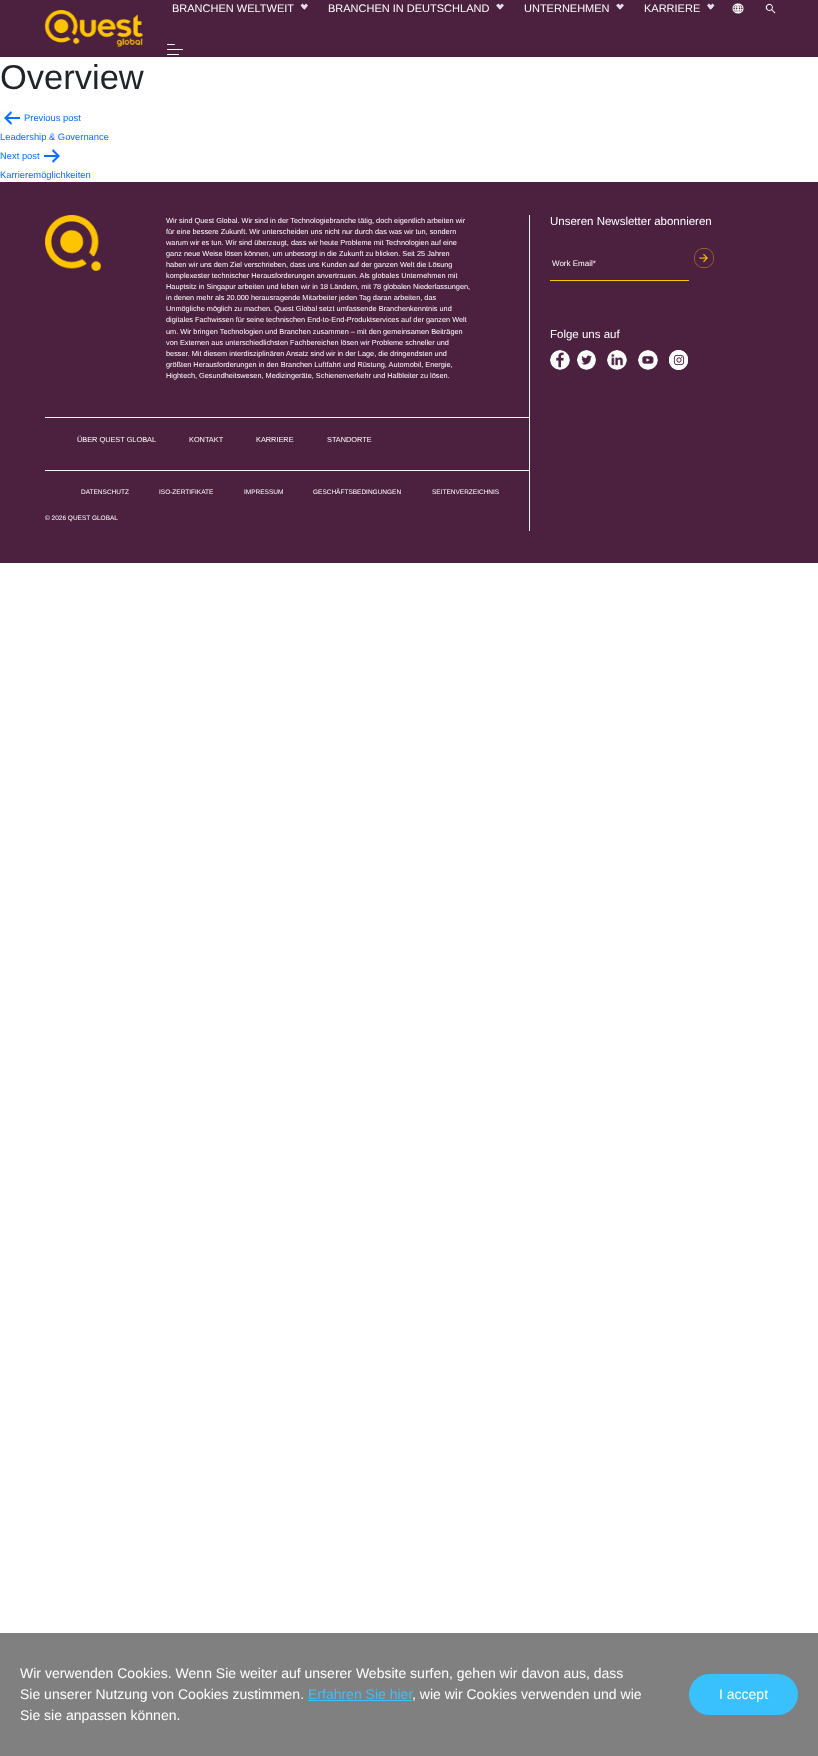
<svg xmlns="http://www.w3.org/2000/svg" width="818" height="1756">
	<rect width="100%" height="100%" fill="#FFFFFF" />
	<rect x="0" y="0" width="818" height="57" fill="#4C203F" />
	<text x="172" y="12" font-family="Liberation Sans" font-size="11" fill="#FFFFFF">BRANCHEN WELTWEIT</text>
	<path d="M306 3.5L308 5.5L304.5 9.5L302 7.5Z" fill="#E4DEE2" />
	<path d="M302.5 3.5L306.5 7.5L304.5 9.5L300.5 5.5Z" fill="#E4DEE2" />
	<text x="328" y="12" font-family="Liberation Sans" font-size="11" fill="#FFFFFF">BRANCHEN IN DEUTSCHLAND</text>
	<path d="M502 3.5L504 5.5L500 9.5L498 7.5Z" fill="#E4DEE2" />
	<path d="M498.5 3.5L502 7.5L500 9.5L496 5.5Z" fill="#E4DEE2" />
	<text x="524" y="12" font-family="Liberation Sans" font-size="11" fill="#FFFFFF">UNTERNEHMEN</text>
	<path d="M622 3.5L624 5.5L620 9.5L618 7.5Z" fill="#E4DEE2" />
	<path d="M618.5 3.5L622 7.5L620 9.5L616 5.5Z" fill="#E4DEE2" />
	<text x="644" y="12" font-family="Liberation Sans" font-size="11" fill="#FFFFFF">KARRIERE</text>
	<path d="M712.5 3.5L714.5 5.5L710.5 9.5L708.5 7.5Z" fill="#E4DEE2" />
	<path d="M709 3.5L713 7.5L710.5 9.5L707 5.5Z" fill="#E4DEE2" />
	<image x="732" y="3" width="12" height="11" href="assets/img1.png" />
	<image x="765" y="3" width="11" height="11" href="assets/img2.png" />
	<rect x="167" y="44" width="8" height="1" rx="0.5" fill="#FFFFFF" />
	<rect x="167" y="49" width="16" height="1" rx="0.5" fill="#FFFFFF" />
	<rect x="167" y="54" width="12" height="1" rx="0.5" fill="#FFFFFF" />
	<image x="44" y="10" width="99" height="37" href="assets/img3.png" />
	<text x="0" y="89" font-family="Liberation Sans" font-size="34.5" fill="#212529">Overview</text>
	<image x="4" y="111" width="16" height="14" href="assets/img4.png" />
	<g font-family="Liberation Sans" font-size="9.4" fill="#0D6EFD">
		<text x="24" y="121">Previous post</text>
		<text x="0" y="140">Leadership &amp; Governance</text>
		<text x="0" y="159">Next post</text>
	</g>
	<image x="44" y="149" width="16" height="14" href="assets/img5.png" />
	<text x="0" y="178" font-family="Liberation Sans" font-size="9.4" fill="#0D6EFD">Karrieremöglichkeiten</text>
	<rect x="0" y="182" width="818" height="381" fill="#4C203F" />
	<rect x="529" y="215" width="1" height="316" fill="#F4F4F4" />
	<rect x="45" y="417" width="484" height="1" fill="#F4F4F4" />
	<image x="45" y="215" width="56" height="56" href="assets/img6.png" />
	<g font-family="Liberation Sans" font-size="7.35" fill="#FFFFFF">
		<text x="166" y="223">Wir sind Quest Global. Wir sind in der Technologiebranche tätig, doch eigentlich arbeiten wir</text>
		<text x="166" y="234">für eine bessere Zukunft. Wir unterscheiden uns nicht nur durch das was wir tun, sondern</text>
		<text x="166" y="245">warum wir es tun. Wir sind überzeugt, dass wir heute Probleme mit Technologien auf eine</text>
		<text x="166" y="256">ganz neue Weise lösen können, um unbesorgt in die Zukunft zu blicken. Seit 25 Jahren</text>
		<text x="166" y="267">haben wir uns dem Ziel verschrieben, dass uns Kunden auf der ganzen Welt die Lösung</text>
		<text x="166" y="278">komplexester technischer Herausforderungen anvertrauen. Als globales Unternehmen mit</text>
		<text x="166" y="289">Hauptsitz in Singapur arbeiten und leben wir in 18 Ländern, mit 78 globalen Niederlassungen,</text>
		<text x="166" y="300">in denen mehr als 20.000 herausragende Mitarbeiter jeden Tag daran arbeiten, das</text>
		<text x="166" y="311">Unmögliche möglich zu machen. Quest Global setzt umfassende Branchenkenntnis und</text>
		<text x="166" y="322">digitales Fachwissen für seine technischen End-to-End-Produktservices auf der ganzen Welt</text>
		<text x="166" y="334">um. Wir bringen Technologien und Branchen zusammen – mit den gemeinsamen Beiträgen</text>
		<text x="166" y="345">von Externen aus unterschiedlichsten Fachbereichen lösen wir Probleme schneller und</text>
		<text x="166" y="356">besser. Mit diesem interdisziplinären Ansatz sind wir in der Lage, die dringendsten und</text>
		<text x="166" y="367">größten Herausforderungen in den Branchen Luftfahrt und Rüstung, Automobil, Energie,</text>
		<text x="166" y="378">Hightech, Gesundheitswesen, Medizingeräte, Schienenverkehr und Halbleiter zu lösen.</text>
	</g>
	<rect x="45" y="470" width="484" height="1" fill="#F4F4F4" />
	<g font-family="Liberation Sans" font-size="7.35" fill="#FFFFFF">
		<text x="77" y="442">ÜBER QUEST GLOBAL</text>
		<text x="189" y="442">KONTAKT</text>
		<text x="256" y="442">KARRIERE</text>
		<text x="327" y="442">STANDORTE</text>
	</g>
	<g font-family="Liberation Sans" font-size="6.5" fill="#FFFFFF">
		<text x="81" y="494">DATENSCHUTZ</text>
		<text x="159" y="494">ISO-ZERTIFIKATE</text>
		<text x="244" y="494">IMPRESSUM</text>
		<text x="313" y="494">GESCHÄFTSBEDINGUNGEN</text>
		<text x="432" y="494">SEITENVERZEICHNIS</text>
		<text x="45" y="520">© 2026 QUEST GLOBAL</text>
	</g>
	<text x="550" y="225" font-family="Liberation Sans" font-size="11.5" fill="#FFFFFF">Unseren Newsletter abonnieren</text>
	<rect x="550" y="280" width="139" height="1" fill="#FFC400" />
	<text x="552" y="266" font-family="Liberation Sans" font-size="8" fill="#FFFFFF">Work Email*</text>
	<image x="694" y="248" width="20" height="20" href="assets/img7.png" />
	<text x="550" y="338" font-family="Liberation Sans" font-size="11.5" fill="#FFFFFF">Folge uns auf</text>
	<image x="550" y="350" width="20" height="20" href="assets/img8.png" />
	<image x="577" y="350" width="19" height="20" href="assets/img9.png" />
	<image x="607" y="350" width="20" height="20" href="assets/img10.png" />
	<image x="638" y="350" width="20" height="20" href="assets/img11.png" />
	<image x="669" y="350" width="19" height="20" href="assets/img12.png" />
	<rect x="0" y="1633" width="818" height="123" fill="#808080" />
	<g font-family="Liberation Sans" font-size="14" fill="#FFFFFF">
		<text x="20" y="1678">Wir verwenden Cookies. Wenn Sie weiter auf unserer Website surfen, gehen wir davon aus, dass</text>
		<text x="20" y="1699">Sie unserer Nutzung von Cookies zustimmen.</text>
	</g>
	<text x="308" y="1699" font-family="Liberation Sans" font-size="14" fill="#39C1FD">Erfahren Sie hier</text>
	<rect x="308" y="1700" width="104" height="1" fill="#39C1FD" />
	<g font-family="Liberation Sans" font-size="14" fill="#FFFFFF">
		<text x="412" y="1699">, wie wir Cookies verwenden und wie</text>
		<text x="20" y="1720">Sie sie anpassen können.</text>
	</g>
	<rect x="689" y="1674" width="109" height="41" rx="20.5" fill="#39C1FD" />
	<text x="719" y="1699" font-family="Liberation Sans" font-size="14" fill="#FFFFFF">I accept</text>
</svg>
